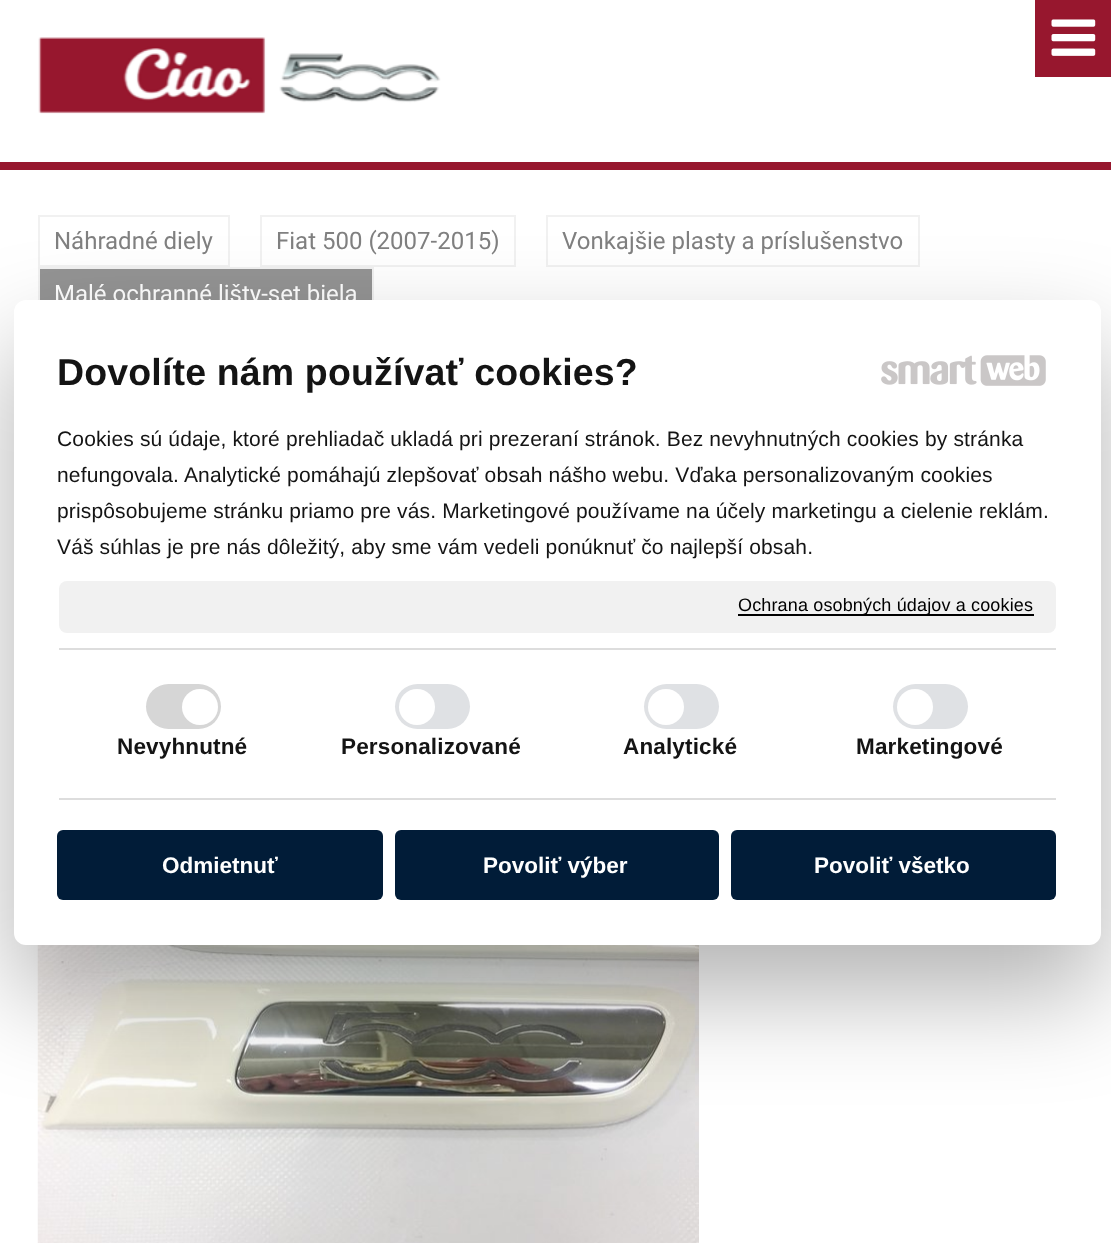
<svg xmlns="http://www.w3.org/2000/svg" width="1111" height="1243">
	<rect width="100%" height="100%" fill="#FFFFFF" />
	<rect x="1035" y="0" width="76" height="77" fill="#97172E" />
	<image x="1051" y="19" width="45" height="37" href="assets/img1.png" />
	<rect x="0" y="162" width="1111" height="8" fill="#97172E" />
	<image x="38" y="37" width="403" height="77" href="assets/img2.png" />
	<rect x="39" y="216" width="190" height="50" fill="none" stroke="#F1F1F1" stroke-width="2" />
	<text x="54" y="249" font-family="Roboto" font-size="24" fill="#808080">Náhradné diely</text>
	<rect x="261" y="216" width="254" height="50" fill="none" stroke="#F1F1F1" stroke-width="2" />
	<text x="276" y="249" font-family="Roboto" font-size="24" fill="#808080">Fiat 500 (2007-2015)</text>
	<rect x="547" y="216" width="372" height="50" fill="none" stroke="#F1F1F1" stroke-width="2" />
	<text x="562" y="249" font-family="Roboto" font-size="24" fill="#808080">Vonkajšie plasty a príslušenstvo</text>
	<rect x="40" y="269" width="332" height="31" fill="#949494" />
	<rect x="39" y="268" width="334" height="51" fill="none" stroke="#F1F1F1" stroke-width="2" />
	<text x="54" y="302" font-family="Roboto" font-size="24" fill="#FFFFFF">Malé ochranné lišty-set biela</text>
	<image x="37" y="945" width="662" height="298" href="assets/img3.png" />
	<rect x="14" y="348" width="1087" height="645" rx="12" fill="#000000" fill-opacity="0.3" filter="blur(51px)" />
	<rect x="14" y="300" width="1087" height="645" rx="12" fill="#FFFFFF" />
	<text x="57" y="385" font-family="Liberation Sans" font-size="37.5" font-weight="700" letter-spacing="0.15" fill="#141414">Dovolíte nám používať cookies?</text>
	<image x="881" y="355" width="96" height="30" href="assets/img4.png" />
	<image x="980" y="355" width="66" height="31" href="assets/img5.png" />
	<g font-family="Liberation Sans" font-size="21" letter-spacing="0.15" fill="#141414">
		<text x="57" y="446">Cookies sú údaje, ktoré prehliadač ukladá pri prezeraní stránok. Bez nevyhnutných cookies by stránka</text>
		<text x="57" y="482">nefungovala. Analytické pomáhajú zlepšovať obsah nášho webu. Vďaka personalizovaným cookies</text>
		<text x="57" y="518">prispôsobujeme stránku priamo pre vás. Marketingové používame na účely marketingu a cielenie reklám.</text>
		<text x="57" y="554">Váš súhlas je pre nás dôležitý, aby sme vám vedeli ponúknuť čo najlepší obsah.</text>
	</g>
	<rect x="59" y="581" width="997" height="52" rx="8" fill="#F1F1F1" />
	<rect x="738" y="614" width="296" height="2" fill="#000000" />
	<text x="738" y="611" font-family="Liberation Sans" font-size="18" letter-spacing="0.15" fill="#000000">Ochrana osobných údajov a cookies</text>
	<rect x="59" y="648" width="997" height="2" fill="#DDDDDD" />
	<rect x="59" y="798" width="997" height="2" fill="#DDDDDD" />
	<rect x="146" y="684" width="75" height="45" rx="22.5" fill="#D6D6D6" />
	<circle cx="200" cy="707" r="18" fill="#FFFFFF" />
	<text x="117" y="754" font-family="Liberation Sans" font-size="22.5" font-weight="700" letter-spacing="0.15" fill="#141414">Nevyhnutné</text>
	<rect x="395" y="684" width="75" height="45" rx="22.5" fill="#DFE1E4" />
	<circle cx="417" cy="707" r="18" fill="#FFFFFF" />
	<text x="341" y="754" font-family="Liberation Sans" font-size="22.5" font-weight="700" letter-spacing="0.15" fill="#141414">Personalizované</text>
	<rect x="644" y="684" width="75" height="45" rx="22.5" fill="#DFE1E4" />
	<circle cx="666" cy="707" r="18" fill="#FFFFFF" />
	<text x="623" y="754" font-family="Liberation Sans" font-size="22.5" font-weight="700" letter-spacing="0.15" fill="#141414">Analytické</text>
	<rect x="893" y="684" width="75" height="45" rx="22.5" fill="#DFE1E4" />
	<circle cx="915" cy="707" r="18" fill="#FFFFFF" />
	<text x="856" y="754" font-family="Liberation Sans" font-size="22.5" font-weight="700" letter-spacing="0.15" fill="#141414">Marketingové</text>
	<rect x="57" y="830" width="326" height="70" rx="6" fill="#011C38" />
	<text x="162" y="873" font-family="Liberation Sans" font-size="22.5" font-weight="700" fill="#FFFFFF">Odmietnuť</text>
	<rect x="395" y="830" width="324" height="70" rx="6" fill="#011C38" />
	<text x="483" y="873" font-family="Liberation Sans" font-size="22.5" font-weight="700" fill="#FFFFFF">Povoliť výber</text>
	<rect x="731" y="830" width="325" height="70" rx="6" fill="#011C38" />
	<text x="814" y="873" font-family="Liberation Sans" font-size="22.5" font-weight="700" fill="#FFFFFF">Povoliť všetko</text>
</svg>
